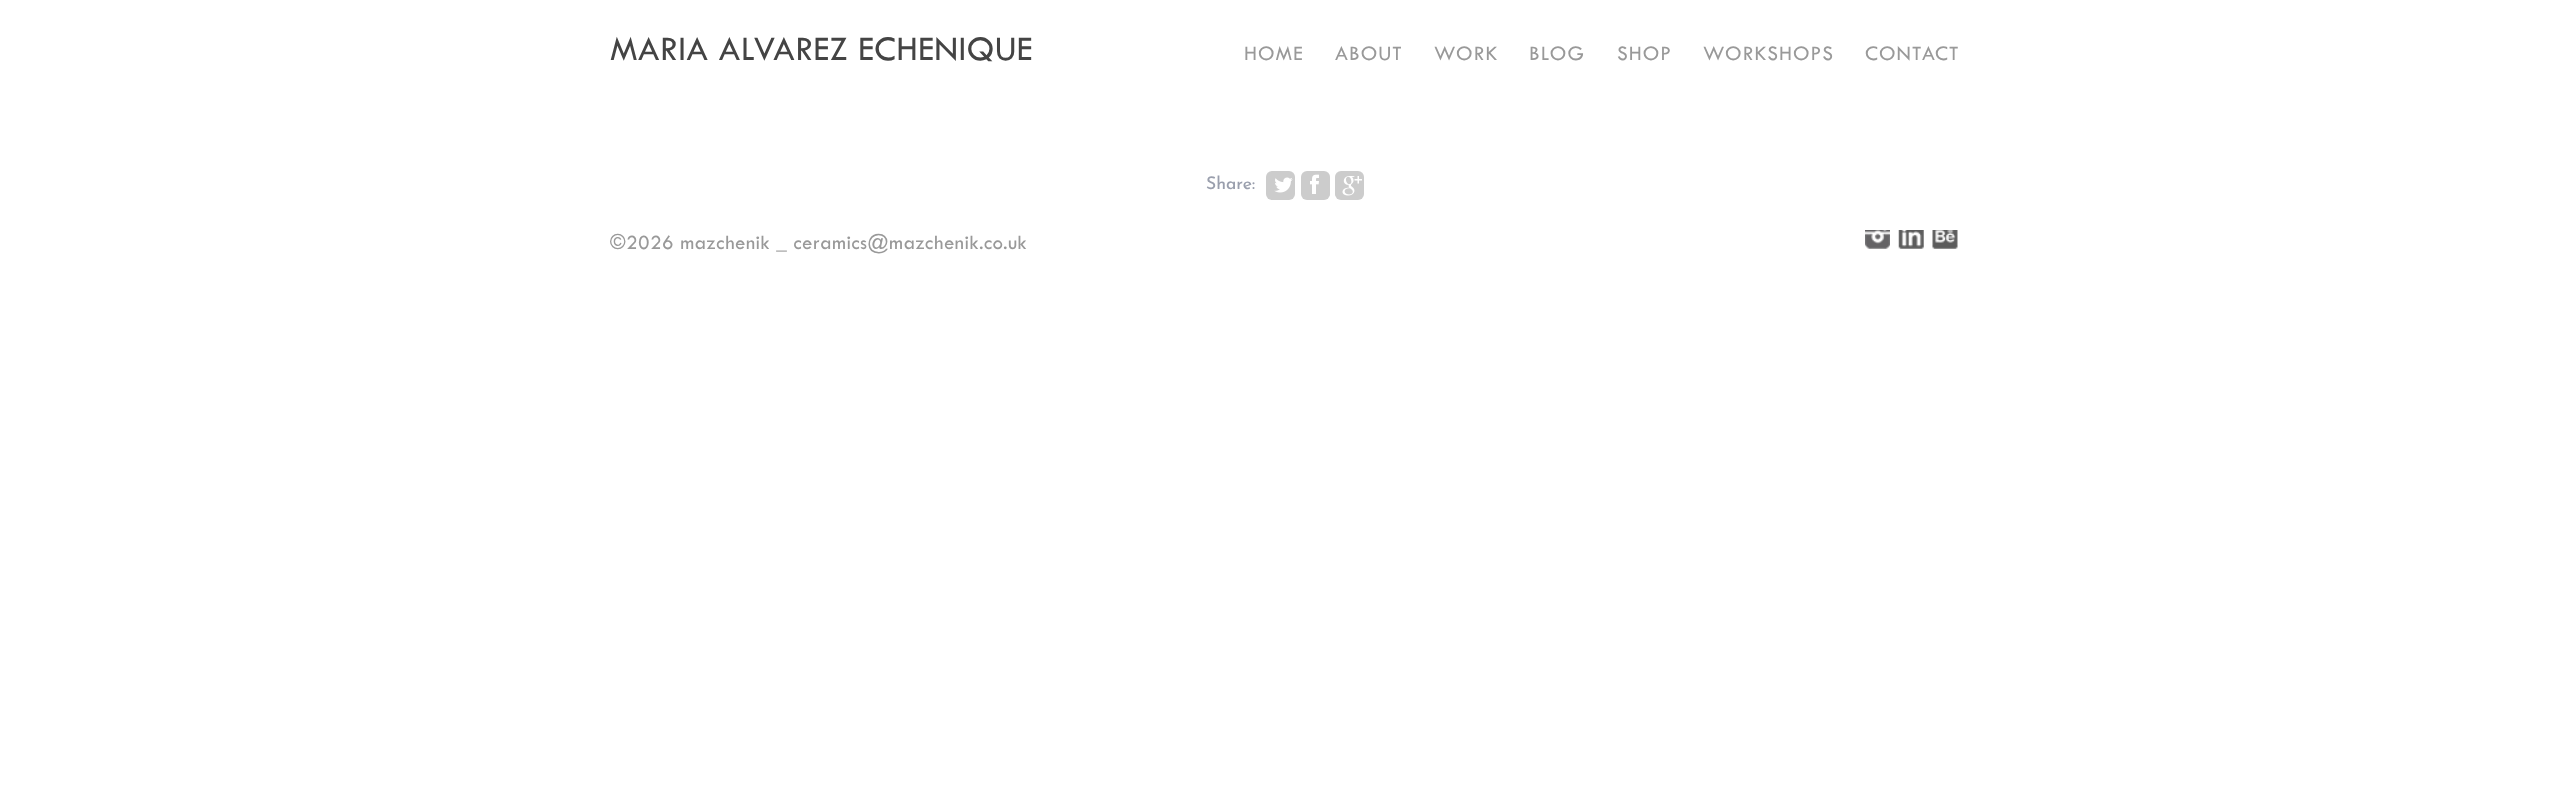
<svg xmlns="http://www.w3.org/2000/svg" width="2569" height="801">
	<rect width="100%" height="100%" fill="#FFFFFF" />
	<text x="610" y="60" font-family="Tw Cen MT" font-size="35.75" letter-spacing="0.4" fill="#444444">MARIA ALVAREZ ECHENIQUE</text>
	<g font-family="Tw Cen MT" font-size="21.5" letter-spacing="1" fill="#999999">
		<text x="1244" y="60">HOME</text>
		<text x="1335" y="60">ABOUT</text>
		<text x="1434" y="60">WORK</text>
		<text x="1529" y="60">BLOG</text>
		<text x="1617" y="60">SHOP</text>
		<text x="1703" y="60">WORKSHOPS</text>
		<text x="1865" y="60">CONTACT</text>
	</g>
	<text x="1206" y="189" font-family="Josefin Sans" font-size="17.5" font-weight="500" fill="#9A9FAD">Share:</text>
	<rect x="1266" y="171" width="29" height="29" rx="6" fill="#CCCCCC" />
	<image x="1274" y="177" width="19" height="16" href="assets/img1.png" />
	<rect x="1301" y="171" width="29" height="29" rx="6" fill="#CCCCCC" />
	<image x="1310" y="174" width="9" height="20" href="assets/img2.png" />
	<rect x="1335" y="171" width="29" height="29" rx="6" fill="#CCCCCC" />
	<image x="1342" y="176" width="20" height="20" href="assets/img3.png" />
	<g font-family="Tw Cen MT" font-size="21" letter-spacing="0.4" fill="#999999">
		<text x="610" y="249">©</text>
		<text x="626" y="249">2026 mazchenik _ ceramics@mazchenik.co.uk</text>
	</g>
	<image x="1865" y="230" width="25" height="19" href="assets/img4.png" />
	<image x="1898" y="230" width="26" height="19" href="assets/img5.png" />
	<image x="1932" y="230" width="26" height="19" href="assets/img6.png" />
</svg>
